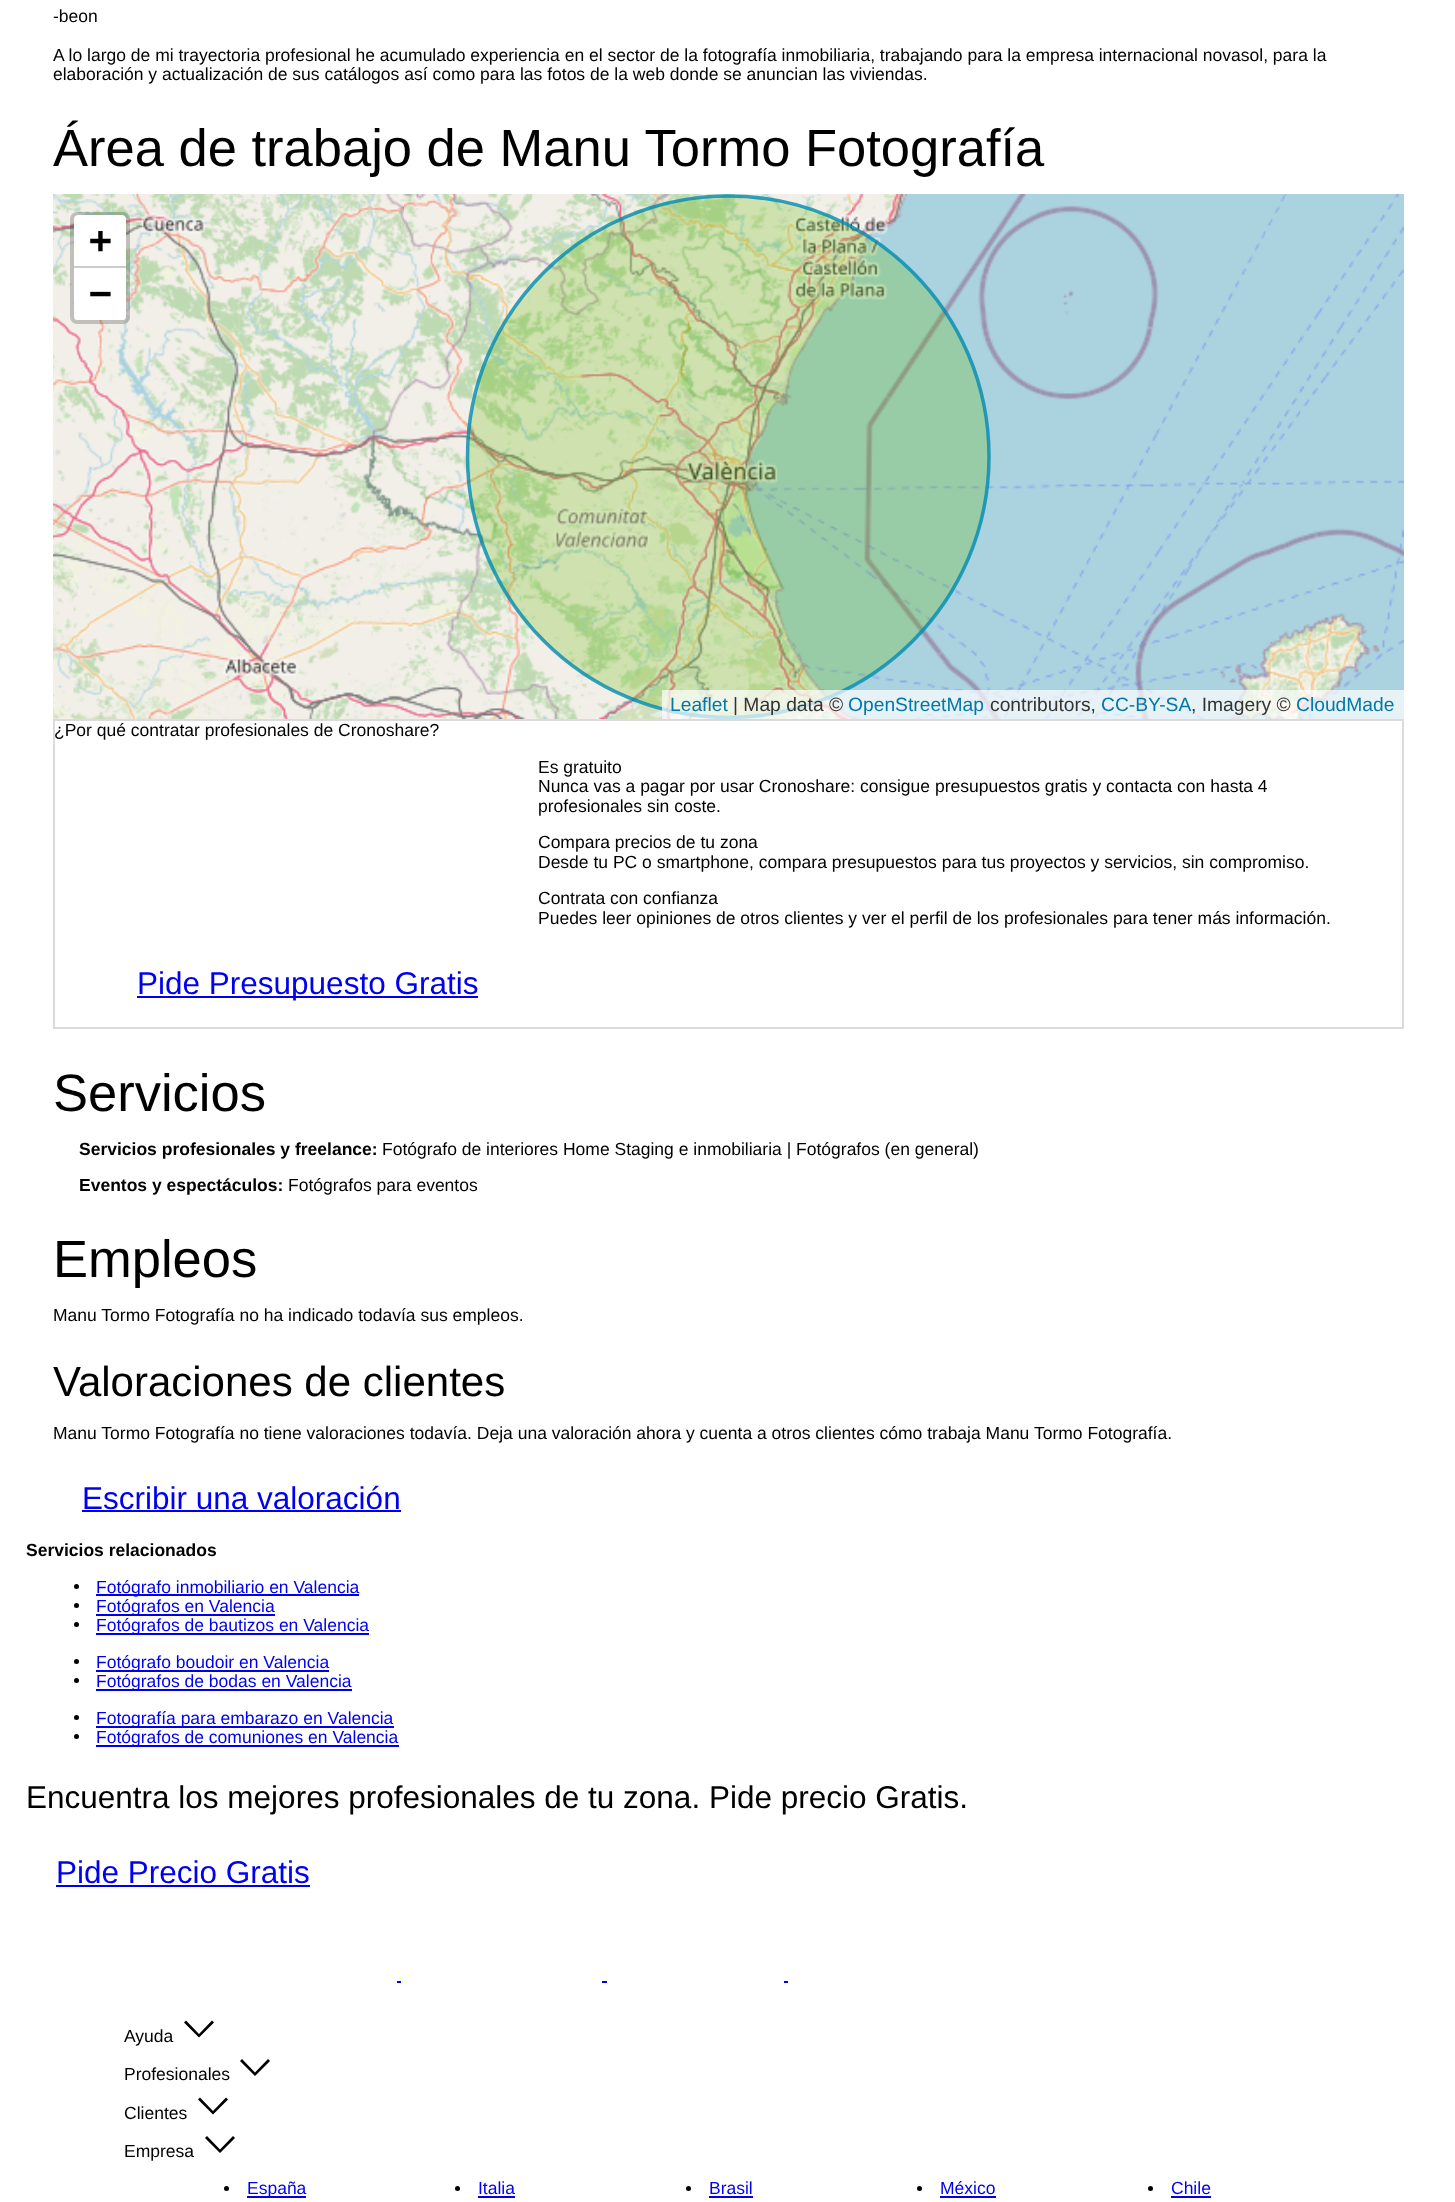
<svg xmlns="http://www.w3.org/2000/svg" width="1455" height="2202">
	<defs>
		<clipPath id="clip1"><rect x="53" y="194" width="1351" height="525" /></clipPath>
	</defs>
	<rect width="100%" height="100%" fill="#FFFFFF" />
	<g font-family="Liberation Sans" font-size="17.5" fill="#000000">
		<text x="53" y="22">-beon</text>
		<text x="53" y="61">A lo largo de mi trayectoria profesional he acumulado experiencia en el sector de la fotografía inmobiliaria, trabajando para la empresa internacional novasol, para la</text>
		<text x="53" y="80">elaboración y actualización de sus catálogos así como para las fotos de la web donde se anuncian las viviendas.</text>
	</g>
	<text x="53" y="166" font-family="Liberation Sans" font-size="52.5" fill="#000000">Área de trabajo de Manu Tormo Fotografía</text>
	<image x="53" y="194" width="351" height="95" href="assets/img1.png" />
	<image x="404" y="194" width="448" height="95" href="assets/img2.png" />
	<image x="852" y="194" width="448" height="95" href="assets/img3.png" />
	<image x="1300" y="194" width="104" height="95" href="assets/img4.png" />
	<image x="53" y="288" width="351" height="431" href="assets/img5.png" />
	<image x="404" y="288" width="448" height="431" href="assets/img6.png" />
	<image x="852" y="288" width="448" height="431" href="assets/img7.png" />
	<image x="1300" y="288" width="104" height="431" href="assets/img8.png" />
	<path d="M468 457C468 601 584 717 728 717C872 717 989 601 989 457C989 313 872 196 728 196C584 196 468 313 468 457" fill="#65B900" fill-opacity="0.25" fill-rule="evenodd" />
	<g clip-path="url(#clip1)">
		<path d="M467.5 456.5C467.5 600.5 584.5 717.5 728.5 717.5C872.5 717.5 989 600.5 989 456.5C989 312.5 872.5 196 728.5 196C584.5 196 467.5 312.5 467.5 456.5" fill="none" stroke="#008BB2" stroke-opacity="0.8" stroke-width="3.5" stroke-linecap="round" stroke-linejoin="round" />
	</g>
	<rect x="72" y="214" width="56" height="108" rx="5" fill="none" stroke="#000000" stroke-opacity="0.2" stroke-width="4" />
	<path d="M78 215H122C124 215 126 217 126 219V268H74V219C74 217 76 215 78 215Z" fill="#FFFFFF" />
	<rect x="74" y="266" width="52" height="2" fill="#CCCCCC" />
	<text x="89" y="253" font-family="DejaVu Sans Mono" font-size="38" font-weight="700" fill="#000000">+</text>
	<path d="M74 268H126V316C126 318 124 320 122 320H78C76 320 74 318 74 316Z" fill="#FFFFFF" />
	<text x="89" y="306" font-family="DejaVu Sans Mono" font-size="38" font-weight="700" fill="#000000">−</text>
	<rect x="662" y="690" width="742" height="29" fill="#FFFFFF" fill-opacity="0.7" />
	<text x="670" y="711" font-family="Liberation Sans" font-size="19.25" fill="#0078A8">Leaflet</text>
	<text x="733" y="711" font-family="Liberation Sans" font-size="19.25" fill="#333333">| Map data ©</text>
	<text x="848" y="711" font-family="Liberation Sans" font-size="19.25" fill="#0078A8">OpenStreetMap</text>
	<text x="990" y="711" font-family="Liberation Sans" font-size="19.25" fill="#333333">contributors,</text>
	<text x="1101" y="711" font-family="Liberation Sans" font-size="19.25" fill="#0078A8">CC-BY-SA</text>
	<text x="1191" y="711" font-family="Liberation Sans" font-size="19.25" fill="#333333">, Imagery ©</text>
	<text x="1296" y="711" font-family="Liberation Sans" font-size="19.25" fill="#0078A8">CloudMade</text>
	<rect x="54" y="720" width="1349" height="308" fill="none" stroke="#DBDBDB" stroke-width="2" />
	<g font-family="Liberation Sans" font-size="17.5" fill="#000000">
		<text x="54" y="736">¿Por qué contratar profesionales de Cronoshare?</text>
		<text x="538" y="773">Es gratuito</text>
		<text x="538" y="792">Nunca vas a pagar por usar Cronoshare: consigue presupuestos gratis y contacta con hasta 4</text>
		<text x="538" y="812">profesionales sin coste.</text>
		<text x="538" y="848">Compara precios de tu zona</text>
		<text x="538" y="868">Desde tu PC o smartphone, compara presupuestos para tus proyectos y servicios, sin compromiso.</text>
		<text x="538" y="904">Contrata con confianza</text>
		<text x="538" y="924">Puedes leer opiniones de otros clientes y ver el perfil de los profesionales para tener más información.</text>
	</g>
	<rect x="137" y="996" width="341" height="2" fill="#0000EE" />
	<text x="137" y="994" font-family="Liberation Sans" font-size="31.5" fill="#0000EE">Pide Presupuesto Gratis</text>
	<text x="53" y="1111" font-family="Liberation Sans" font-size="52.5" fill="#000000">Servicios</text>
	<text x="79" y="1155" font-family="Liberation Sans" font-size="17.5" font-weight="700" fill="#000000">Servicios profesionales y freelance:</text>
	<text x="382" y="1155" font-family="Liberation Sans" font-size="17.5" fill="#000000">Fotógrafo de interiores Home Staging e inmobiliaria | Fotógrafos (en general)</text>
	<text x="79" y="1191" font-family="Liberation Sans" font-size="17.5" font-weight="700" fill="#000000">Eventos y espectáculos:</text>
	<text x="288" y="1191" font-family="Liberation Sans" font-size="17.5" fill="#000000">Fotógrafos para eventos</text>
	<text x="53" y="1277" font-family="Liberation Sans" font-size="52.5" fill="#000000">Empleos</text>
	<text x="53" y="1321" font-family="Liberation Sans" font-size="17.5" fill="#000000">Manu Tormo Fotografía no ha indicado todavía sus empleos.</text>
	<text x="53" y="1396" font-family="Liberation Sans" font-size="42" fill="#000000">Valoraciones de clientes</text>
	<text x="53" y="1439" font-family="Liberation Sans" font-size="17.5" fill="#000000">Manu Tormo Fotografía no tiene valoraciones todavía. Deja una valoración ahora y cuenta a otros clientes cómo trabaja Manu Tormo Fotografía.</text>
	<text x="82" y="1509" font-family="Liberation Sans" font-size="31.5" fill="#0000EE">Escribir una valoración</text>
	<rect x="82" y="1510" width="319" height="2" fill="#0000EE" />
	<text x="26" y="1556" font-family="Liberation Sans" font-size="17.5" font-weight="700" fill="#000000">Servicios relacionados</text>
	<circle cx="76.5" cy="1586.5" r="2.5" fill="#000000" />
	<rect x="96" y="1594" width="263" height="2" fill="#0000EE" />
	<text x="96" y="1593" font-family="Liberation Sans" font-size="17.5" fill="#0000EE">Fotógrafo inmobiliario en Valencia</text>
	<circle cx="76.5" cy="1605.5" r="2.5" fill="#000000" />
	<rect x="96" y="1614" width="179" height="2" fill="#0000EE" />
	<text x="96" y="1612" font-family="Liberation Sans" font-size="17.5" fill="#0000EE">Fotógrafos en Valencia</text>
	<circle cx="76.5" cy="1624.5" r="2.5" fill="#000000" />
	<rect x="96" y="1633" width="273" height="2" fill="#0000EE" />
	<text x="96" y="1631" font-family="Liberation Sans" font-size="17.5" fill="#0000EE">Fotógrafos de bautizos en Valencia</text>
	<circle cx="76.5" cy="1661.5" r="2.5" fill="#000000" />
	<rect x="96" y="1670" width="233" height="2" fill="#0000EE" />
	<text x="96" y="1668" font-family="Liberation Sans" font-size="17.5" fill="#0000EE">Fotógrafo boudoir en Valencia</text>
	<circle cx="76.5" cy="1680.5" r="2.5" fill="#000000" />
	<rect x="96" y="1689" width="256" height="2" fill="#0000EE" />
	<text x="96" y="1687" font-family="Liberation Sans" font-size="17.5" fill="#0000EE">Fotógrafos de bodas en Valencia</text>
	<circle cx="76.5" cy="1717.5" r="2.5" fill="#000000" />
	<rect x="96" y="1726" width="298" height="2" fill="#0000EE" />
	<text x="96" y="1724" font-family="Liberation Sans" font-size="17.5" fill="#0000EE">Fotografía para embarazo en Valencia</text>
	<circle cx="76.5" cy="1736.5" r="2.5" fill="#000000" />
	<rect x="96" y="1745" width="303" height="2" fill="#0000EE" />
	<text x="96" y="1743" font-family="Liberation Sans" font-size="17.5" fill="#0000EE">Fotógrafos de comuniones en Valencia</text>
	<text x="26" y="1808" font-family="Liberation Sans" font-size="31.5" fill="#000000">Encuentra los mejores profesionales de tu zona. Pide precio Gratis.</text>
	<text x="56" y="1883" font-family="Liberation Sans" font-size="31.5" fill="#0000EE">Pide Precio Gratis</text>
	<rect x="56" y="1885" width="254" height="2" fill="#0000EE" />
	<rect x="397" y="1981" width="4" height="2" fill="#0000EE" />
	<rect x="602" y="1981" width="5" height="2" fill="#0000EE" />
	<rect x="784" y="1981" width="4" height="2" fill="#0000EE" />
	<text x="124" y="2042" font-family="Liberation Sans" font-size="17.5" fill="#000000">Ayuda</text>
	<path d="M199 2034L212 2020.5L214 2022.5L199 2037.5L184 2022.5L186 2020.5Z" fill="#000000" />
	<text x="124" y="2080" font-family="Liberation Sans" font-size="17.5" fill="#000000">Profesionales</text>
	<path d="M255 2072.5L268 2059L270 2061L255 2076L240 2061L242 2059Z" fill="#000000" />
	<text x="124" y="2119" font-family="Liberation Sans" font-size="17.5" fill="#000000">Clientes</text>
	<path d="M213 2111L226 2097.5L228 2099.5L213 2114.5L198 2099.5L200 2097.5Z" fill="#000000" />
	<text x="124" y="2157" font-family="Liberation Sans" font-size="17.5" fill="#000000">Empresa</text>
	<path d="M220 2149.5L233 2136L235 2138L220 2153L205 2138L207 2136Z" fill="#000000" />
	<circle cx="226.5" cy="2188.5" r="2.5" fill="#000000" />
	<rect x="247" y="2196" width="59" height="2" fill="#0000EE" />
	<text x="247" y="2194" font-family="Liberation Sans" font-size="17.5" fill="#0000EE">España</text>
	<circle cx="457.5" cy="2188.5" r="2.5" fill="#000000" />
	<text x="478" y="2194" font-family="Liberation Sans" font-size="17.5" fill="#0000EE">Italia</text>
	<rect x="478" y="2196" width="37" height="2" fill="#0000EE" />
	<circle cx="688.5" cy="2188.5" r="2.5" fill="#000000" />
	<text x="709" y="2194" font-family="Liberation Sans" font-size="17.5" fill="#0000EE">Brasil</text>
	<rect x="709" y="2196" width="44" height="2" fill="#0000EE" />
	<circle cx="919.5" cy="2188.5" r="2.5" fill="#000000" />
	<text x="940" y="2194" font-family="Liberation Sans" font-size="17.5" fill="#0000EE">México</text>
	<rect x="940" y="2196" width="56" height="2" fill="#0000EE" />
	<circle cx="1150.5" cy="2188.5" r="2.5" fill="#000000" />
	<text x="1171" y="2194" font-family="Liberation Sans" font-size="17.5" fill="#0000EE">Chile</text>
	<rect x="1171" y="2196" width="40" height="2" fill="#0000EE" />
</svg>
